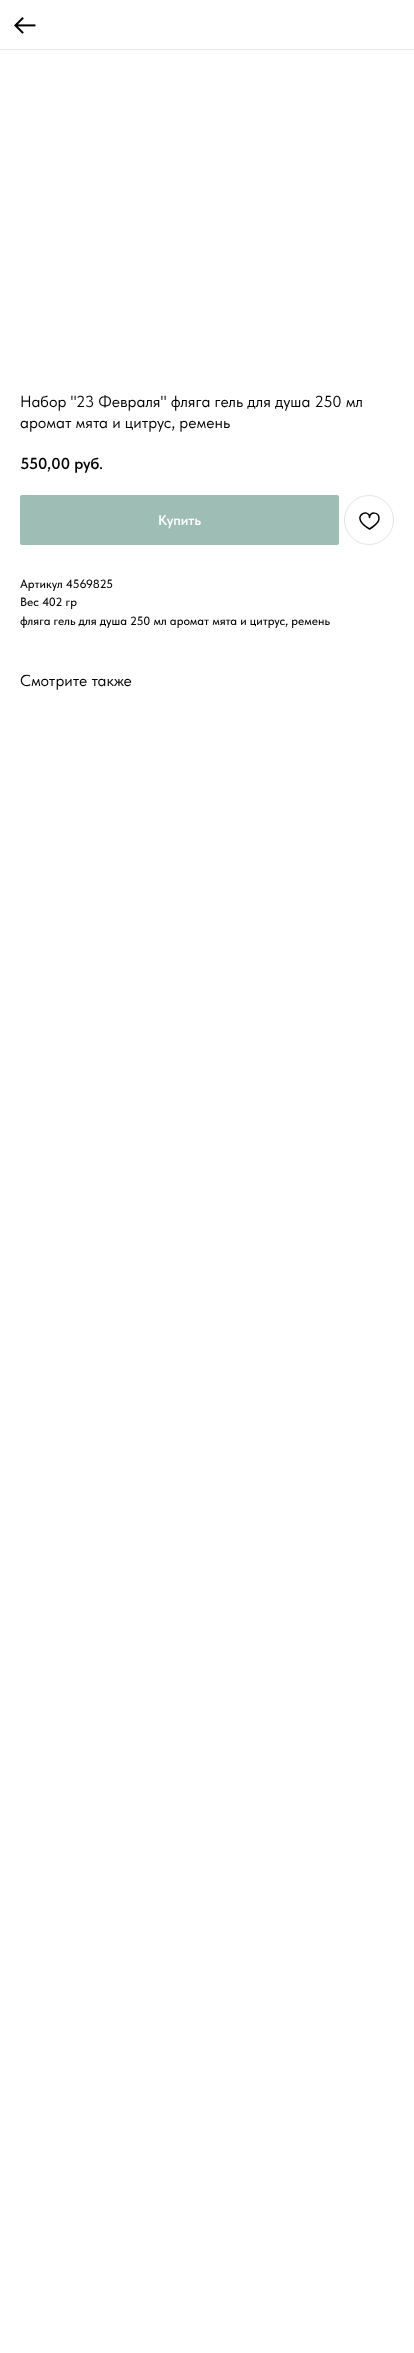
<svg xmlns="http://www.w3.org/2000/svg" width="414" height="2353">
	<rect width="100%" height="100%" fill="#FFFFFF" />
	<rect x="0" y="49" width="414" height="1" fill="#E6E6E6" />
	<image x="14" y="17" width="22" height="17" href="assets/img1.png" />
	<g font-family="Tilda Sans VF" font-size="16" fill="#000000">
		<text x="20" y="407">Набор "23 Февраля" фляга гель для душа 250 мл</text>
		<text x="20" y="428">аромат мята и цитрус, ремень</text>
	</g>
	<text x="20" y="469" font-family="Tilda Sans VF" font-size="16" font-weight="600" fill="#000000">550,00 руб.</text>
	<rect x="21" y="496" width="317" height="48" rx="1" fill="#9EBDB5" stroke="#9EBDB5" stroke-width="2" />
	<text x="158" y="525" font-family="Tilda Sans VF" font-size="14" font-weight="600" fill="#FFFFFF">Купить</text>
	<circle cx="369" cy="520" r="24.5" fill="none" stroke="#E4E4E4" />
	<path d="M379 518.5C379 523.5 369.5 529 369.5 529C348 516.5 369.5 507 369.5 517.5C369.5 511.5 379 511.5 379 518.5Z" fill="none" stroke="#000000" stroke-width="1.5" stroke-linejoin="round" />
	<g font-family="Tilda Sans VF" font-size="12" font-weight="500" fill="#000000">
		<text x="20" y="588">Артикул 4569825</text>
		<text x="20" y="606">Вес 402 гр</text>
		<text x="20" y="625">фляга гель для душа 250 мл аромат мята и цитрус, ремень</text>
	</g>
	<text x="20" y="686" font-family="Tilda Sans VF" font-size="16" fill="#000000">Смотрите также</text>
</svg>
